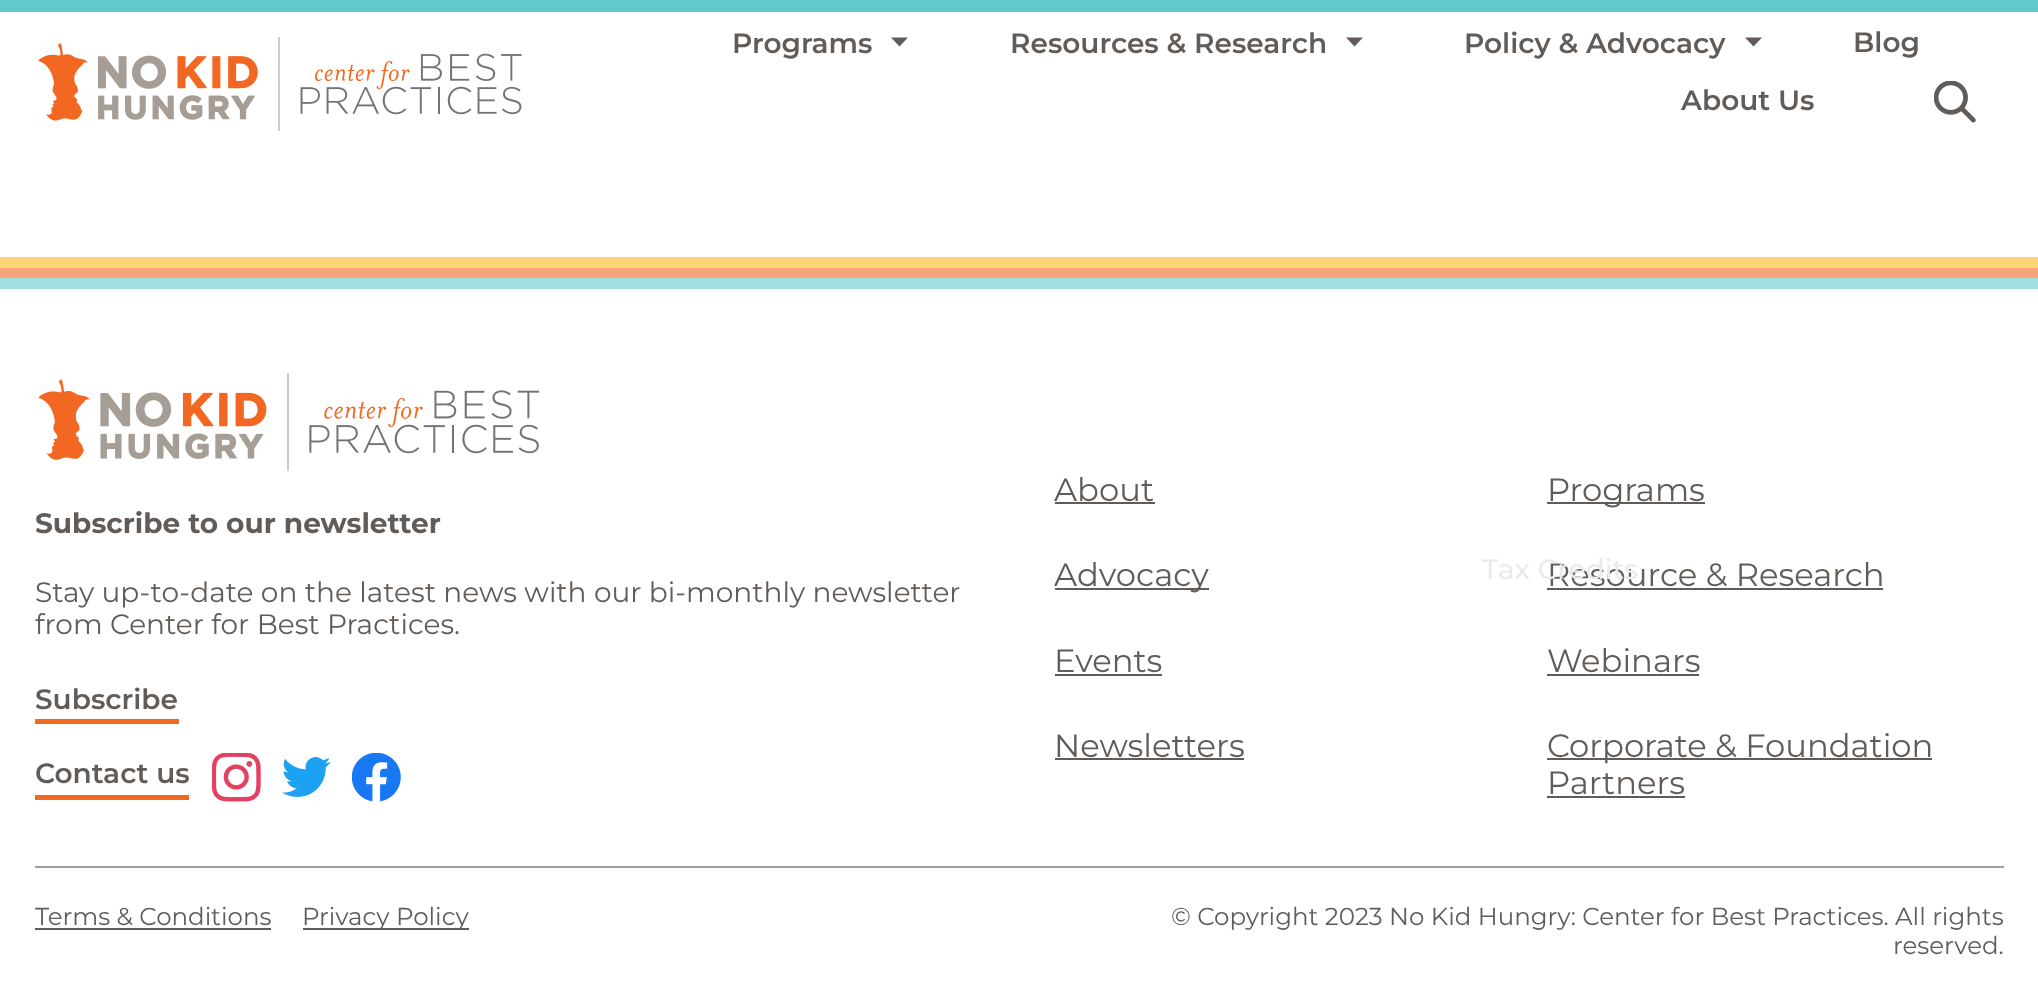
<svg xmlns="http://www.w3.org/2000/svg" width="2038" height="994">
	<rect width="100%" height="100%" fill="#FFFFFF" />
	<rect x="0" y="0" width="2038" height="12" fill="#63C8CC" />
	<rect x="278" y="37" width="2" height="94" fill="#CCCCCC" />
	<image x="38" y="43" width="220" height="78" href="assets/img1.png" />
	<image x="300" y="53" width="222" height="62" href="assets/img2.png" />
	<text x="732" y="53" font-family="Montserrat" font-size="28" font-weight="600" fill="#625C58">Programs</text>
	<path d="M899.5 46.5L891 37.5H908Z" fill="#625C58" />
	<text x="1010" y="53" font-family="Montserrat" font-size="28" font-weight="600" fill="#625C58">Resources &amp; Research</text>
	<path d="M1354.5 46.5L1346 37.5H1363Z" fill="#625C58" />
	<text x="1464" y="53" font-family="Montserrat" font-size="28" font-weight="600" fill="#625C58">Policy &amp; Advocacy</text>
	<path d="M1753.5 46.5L1745 37.5H1762Z" fill="#625C58" />
	<text x="1547" y="586" font-family="Montserrat" font-size="32.25" fill="#625C58">Resource &amp; Research</text>
	<text x="1482" y="579" font-family="Montserrat" font-size="28" font-weight="500" fill="#EBEAE9">Tax Credits</text>
	<g font-family="Montserrat" font-size="28" font-weight="600" fill="#625C58">
		<text x="1853" y="52">Blog</text>
		<text x="1681" y="110">About Us</text>
	</g>
	<image x="1934" y="81" width="42" height="42" href="assets/img3.png" />
	<rect x="0" y="257" width="2038" height="11" fill="#FED574" />
	<rect x="0" y="268" width="2038" height="10" fill="#F7A47A" />
	<rect x="0" y="278" width="2038" height="11" fill="#A1DEE0" />
	<rect x="287" y="373" width="2" height="98" fill="#CCCCCC" />
	<image x="38" y="379" width="229" height="81" href="assets/img4.png" />
	<image x="309" y="390" width="230" height="64" href="assets/img5.png" />
	<text x="35" y="533" font-family="Montserrat" font-size="28" font-weight="700" fill="#625C58">Subscribe to our newsletter</text>
	<g font-family="Montserrat" font-size="28" fill="#625C58">
		<text x="35" y="602">Stay up-to-date on the latest news with our bi-monthly newsletter</text>
		<text x="35" y="634">from Center for Best Practices.</text>
	</g>
	<text x="35" y="709" font-family="Montserrat" font-size="28" font-weight="600" fill="#625C58">Subscribe</text>
	<rect x="35" y="719" width="144" height="5" fill="#F26722" />
	<text x="35" y="783" font-family="Montserrat" font-size="28" font-weight="600" fill="#625C58">Contact us</text>
	<rect x="35" y="795" width="154" height="5" fill="#F26722" />
	<image x="212" y="753" width="49" height="49" href="assets/img6.png" />
	<image x="282" y="757" width="49" height="40" href="assets/img7.png" />
	<image x="352" y="753" width="49" height="49" href="assets/img8.png" />
	<text x="1054" y="501" font-family="Montserrat" font-size="32.25" fill="#625C58">About</text>
	<rect x="1055" y="502" width="100" height="2" fill="#625C58" />
	<rect x="1547" y="502" width="158" height="2" fill="#625C58" />
	<text x="1547" y="501" font-family="Montserrat" font-size="32.25" fill="#625C58">Programs</text>
	<rect x="1055" y="588" width="154" height="2" fill="#625C58" />
	<text x="1054" y="586" font-family="Montserrat" font-size="32.25" fill="#625C58">Advocacy</text>
	<rect x="1547" y="588" width="336" height="2" fill="#625C58" />
	<text x="1054" y="672" font-family="Montserrat" font-size="32.25" fill="#625C58">Events</text>
	<rect x="1055" y="674" width="107" height="2" fill="#625C58" />
	<text x="1547" y="672" font-family="Montserrat" font-size="32.25" fill="#625C58">Webinars</text>
	<rect x="1547" y="674" width="152" height="2" fill="#625C58" />
	<text x="1054" y="757" font-family="Montserrat" font-size="32.25" fill="#625C58">Newsletters</text>
	<rect x="1055" y="758" width="189" height="2" fill="#625C58" />
	<rect x="1547" y="758" width="385" height="2" fill="#625C58" />
	<g font-family="Montserrat" font-size="32.25" fill="#625C58">
		<text x="1547" y="757">Corporate &amp; Foundation</text>
		<text x="1547" y="794">Partners</text>
	</g>
	<rect x="1547" y="796" width="138" height="2" fill="#625C58" />
	<rect x="35" y="866" width="1969" height="2" fill="#A19D9B" />
	<text x="35" y="925" font-family="Montserrat" font-size="24.5" fill="#625C58">Terms &amp; Conditions</text>
	<rect x="35" y="928" width="236" height="2" fill="#625C58" />
	<rect x="303" y="928" width="166" height="2" fill="#625C58" />
	<g font-family="Montserrat" font-size="24.5" fill="#625C58">
		<text x="302" y="925">Privacy Policy</text>
		<text x="1171" y="925">© Copyright 2023 No Kid Hungry: Center for Best Practices. All rights</text>
		<text x="1893" y="954">reserved.</text>
	</g>
</svg>
